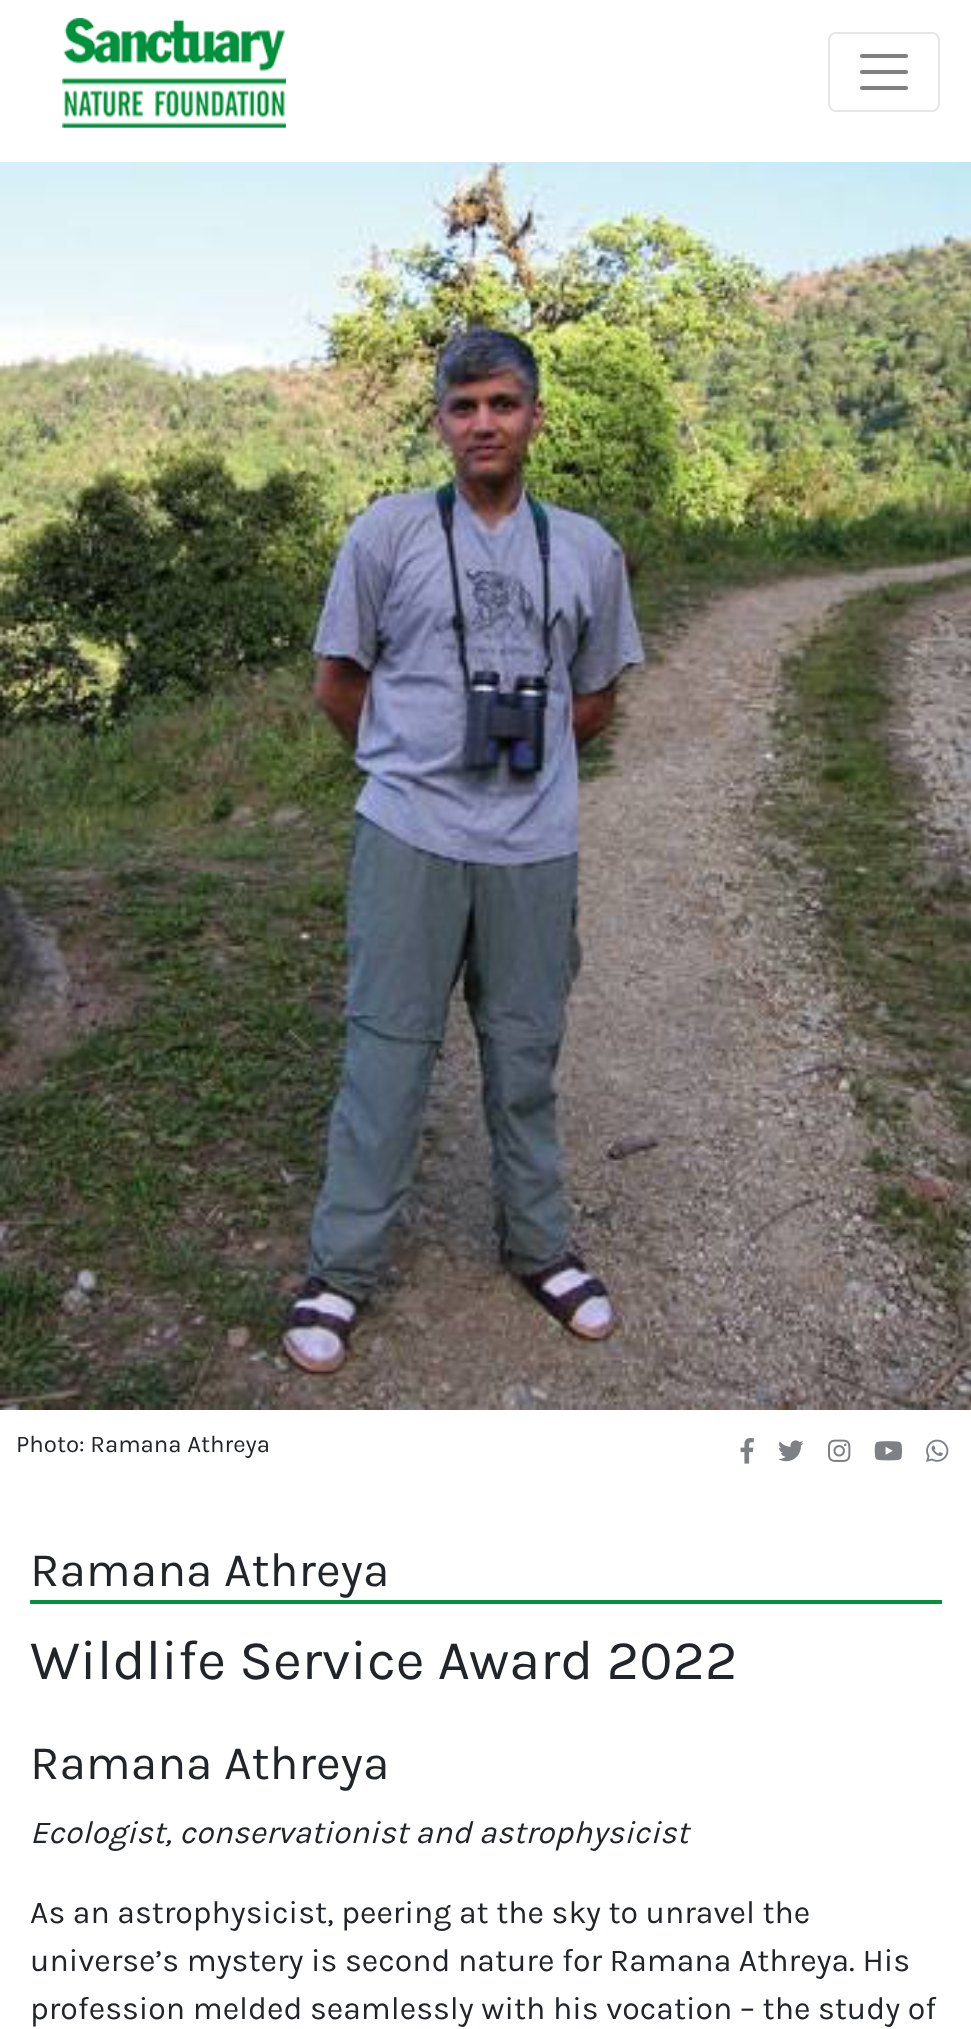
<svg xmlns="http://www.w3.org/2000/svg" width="971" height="2029">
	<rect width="100%" height="100%" fill="#FFFFFF" />
	<image x="62" y="18" width="224" height="110" href="assets/img1.png" />
	<rect x="829" y="33" width="110" height="78" rx="7" fill="none" stroke="#E6E6E6" stroke-width="2" />
	<path d="M862 56H906M862 72H906M862 88H906" fill="none" stroke="#808080" stroke-width="4" stroke-linecap="round" />
	<image x="0" y="162" width="971" height="1248" href="assets/img2.png" />
	<text x="16" y="1452" font-family="Karla" font-size="24" fill="#212529">Photo: Ramana Athreya</text>
	<image x="740" y="1438" width="14" height="26" href="assets/img3.png" />
	<image x="778" y="1440" width="26" height="22" href="assets/img4.png" />
	<image x="828" y="1439" width="23" height="23" href="assets/img5.png" />
	<image x="874" y="1441" width="28" height="20" href="assets/img6.png" />
	<image x="926" y="1439" width="23" height="23" href="assets/img7.png" />
	<rect x="30" y="1600" width="912" height="4" fill="#00923E" />
	<text x="30" y="1586" font-family="Karla" font-size="48" fill="#212529">Ramana Athreya</text>
	<text x="30" y="1679" font-family="Karla" font-size="56" fill="#212529">Wildlife Service Award 2022</text>
	<text x="30" y="1779" font-family="Karla" font-size="48" fill="#212529">Ramana Athreya</text>
	<text x="30" y="1843" font-family="Karla" font-size="32" font-style="italic" fill="#212529">Ecologist, conservationist and astrophysicist</text>
	<g font-family="Karla" font-size="32" fill="#212529">
		<text x="30" y="1923">As an astrophysicist, peering at the sky to unravel the</text>
		<text x="30" y="1971">universe’s mystery is second nature for Ramana Athreya. His</text>
		<text x="30" y="2019">profession melded seamlessly with his vocation – the study of</text>
	</g>
</svg>
